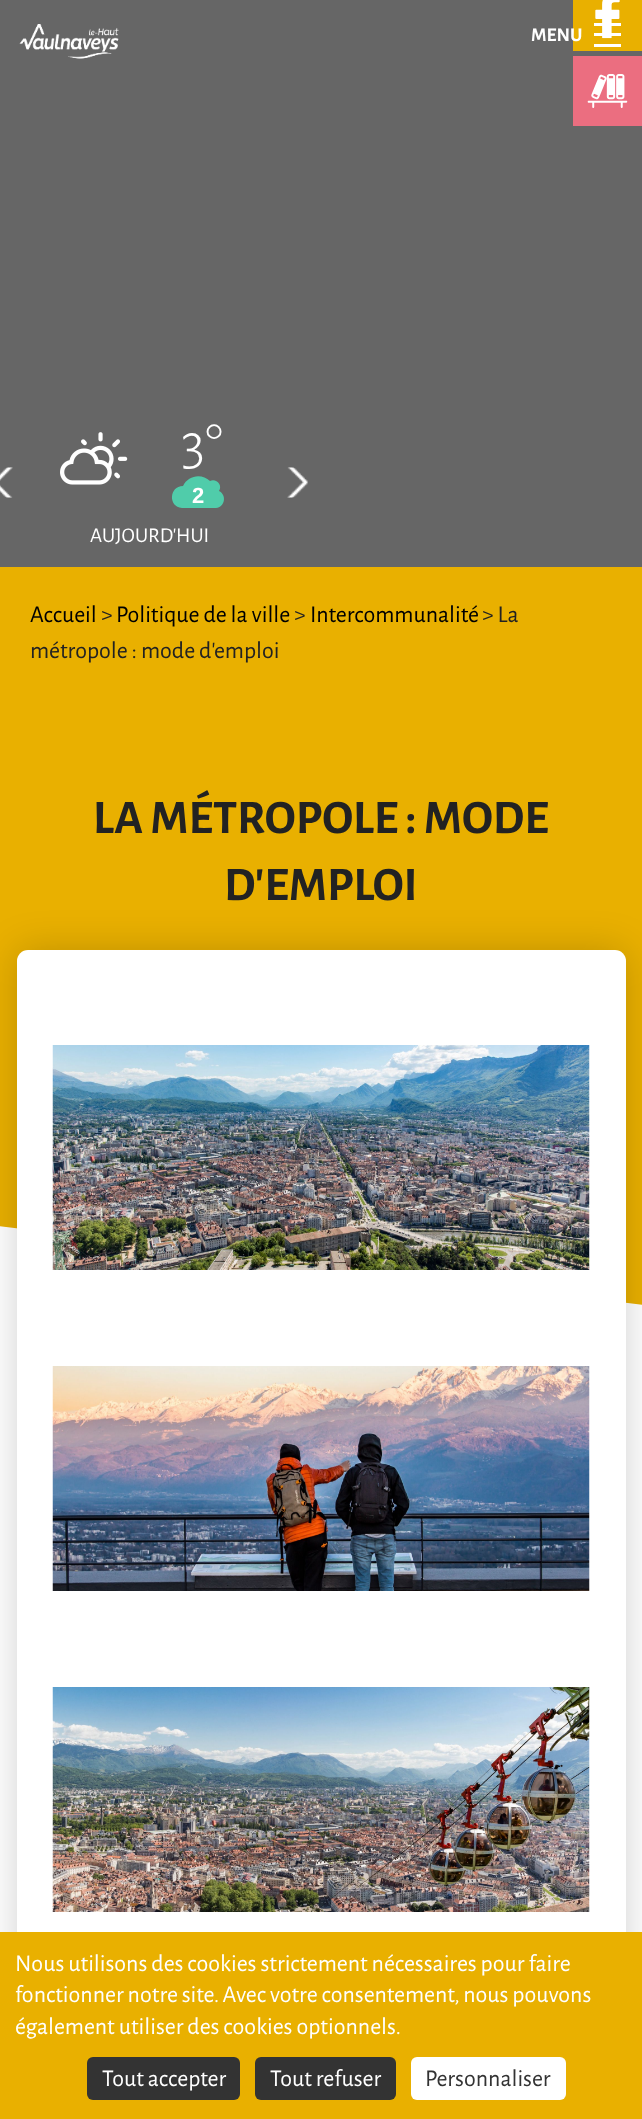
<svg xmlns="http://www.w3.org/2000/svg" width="642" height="2119">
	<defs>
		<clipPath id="clip1"><rect x="0" y="567" width="642" height="945" /></clipPath>
	</defs>
	<rect width="100%" height="100%" fill="#FFFFFF" />
	<rect x="0" y="0" width="642" height="567" fill="#666666" />
	<image x="19" y="24" width="100" height="35" href="assets/img1.png" />
	<rect x="573" y="0" width="69" height="51" fill="#E9B000" />
	<text x="531" y="41" font-family="Alegreya Sans" font-size="19.5" font-weight="700" fill="#FFFFFF">MENU</text>
	<rect x="594" y="44" width="27" height="3" fill="#FFFFFF" />
	<image x="595" y="0" width="25" height="39" href="assets/img2.png" />
	<rect x="594" y="33" width="27" height="3" fill="#FFFFFF" />
	<rect x="594" y="23" width="27" height="3" fill="#FFFFFF" />
	<rect x="573" y="56" width="69" height="70" fill="#EB6E80" />
	<image x="587" y="74" width="41" height="34" href="assets/img3.png" />
	<image x="60" y="432" width="68" height="53" href="assets/img4.png" />
	<text x="181" y="463" font-family="Alegreya Sans" font-size="60" font-weight="300" fill="#FFFFFF">3°</text>
	<path d="M219 491C223 485 216 478 210 481C202 473 188 475 183 486C169 486 168 507 182 508H216C225 507 227 495 219 491" fill="#50CCAA" />
	<text x="192" y="503" font-family="Liberation Sans" font-size="22" font-weight="700" fill="#FFFFFF">2</text>
	<text x="90" y="542" font-family="Alegreya Sans" font-size="21" fill="#FFFFFF">AUJOURD'HUI</text>
	<image x="0" y="467" width="13" height="31" href="assets/img5.png" />
	<image x="287" y="467" width="21" height="31" href="assets/img6.png" />
	<g clip-path="url(#clip1)">
		<path d="M-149-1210L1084-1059L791 1323L-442 1172Z" fill="#E9B000" />
	</g>
	<text x="30" y="622" font-family="Alegreya Sans" font-size="24" fill="#000000">Accueil</text>
	<text x="101" y="622" font-family="Alegreya Sans" font-size="24" fill="#222222">&gt;</text>
	<text x="116" y="622" font-family="Alegreya Sans" font-size="24" fill="#000000">Politique de la ville</text>
	<text x="294" y="622" font-family="Alegreya Sans" font-size="24" fill="#222222">&gt;</text>
	<text x="310" y="622" font-family="Alegreya Sans" font-size="24" fill="#000000">Intercommunalité</text>
	<g font-family="Alegreya Sans" font-size="24" fill="#222222">
		<text x="482" y="622">&gt; La</text>
		<text x="30" y="658">métropole : mode d’emploi</text>
	</g>
	<text x="93" y="833" font-family="Alegreya Sans" font-size="48" font-weight="700" fill="#222222">LA MÉTROPOLE : MODE</text>
	<rect x="17" y="950" width="609" height="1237" rx="11" fill="#000000" fill-opacity="0.18" filter="blur(19px)" />
	<text x="224" y="900" font-family="Alegreya Sans" font-size="48" font-weight="700" fill="#222222">D’EMPLOI</text>
	<rect x="17" y="950" width="609" height="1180" rx="11" fill="#FFFFFF" />
	<image x="52" y="1045" width="538" height="225" href="assets/img7.png" />
	<image x="52" y="1366" width="538" height="225" href="assets/img8.png" />
	<image x="52" y="1687" width="538" height="225" href="assets/img9.png" />
	<rect x="0" y="1932" width="642" height="187" fill="#E9B000" />
	<g font-family="Alegreya Sans" font-size="24" fill="#FFFFFF">
		<text x="15" y="1971">Nous utilisons des cookies strictement nécessaires pour faire</text>
		<text x="15" y="2002">fonctionner notre site. Avec votre consentement, nous pouvons</text>
		<text x="15" y="2034">également utiliser des cookies optionnels.</text>
	</g>
	<rect x="87" y="2057" width="153" height="43" rx="6" fill="#333333" />
	<text x="102" y="2086" font-family="Alegreya Sans" font-size="24" fill="#FFFFFF">Tout accepter</text>
	<rect x="255" y="2057" width="141" height="43" rx="6" fill="#333333" />
	<text x="270" y="2086" font-family="Alegreya Sans" font-size="24" fill="#FFFFFF">Tout refuser</text>
	<rect x="411" y="2057" width="155" height="43" rx="6" fill="#FFFFFF" />
	<text x="425" y="2086" font-family="Alegreya Sans" font-size="24" fill="#333333">Personnaliser</text>
</svg>
